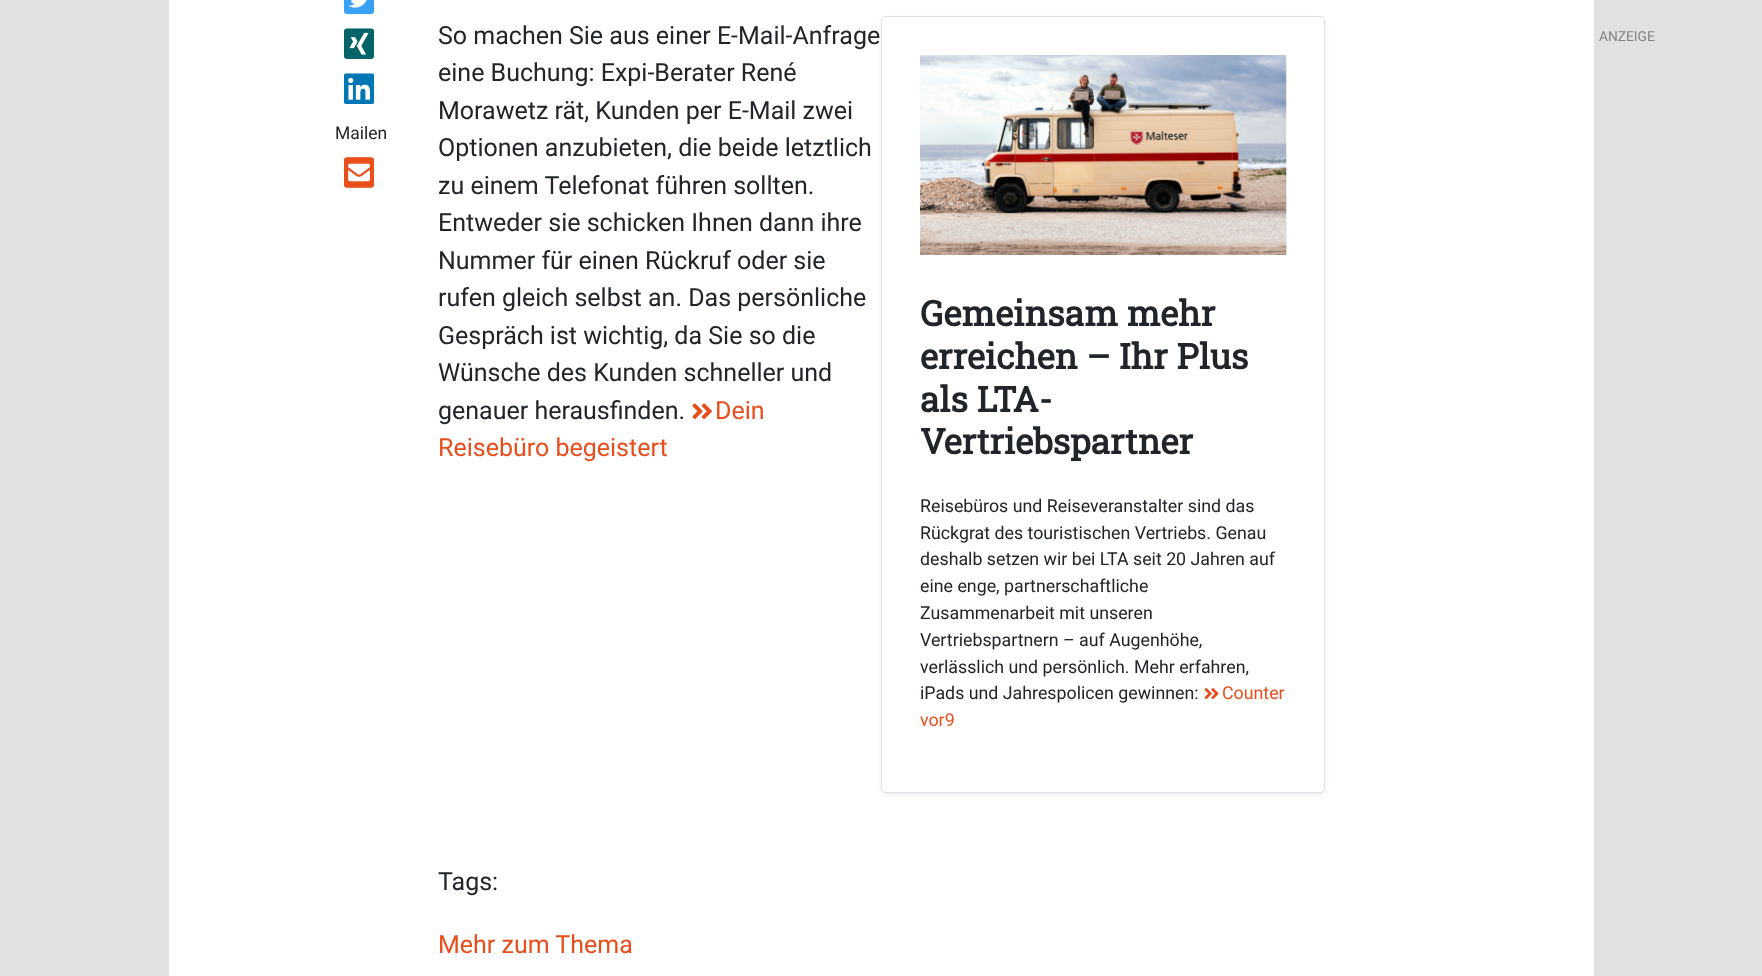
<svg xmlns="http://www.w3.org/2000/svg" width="1762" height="976">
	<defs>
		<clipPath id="clip1"><path d="M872 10H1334V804H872ZM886 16H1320C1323 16 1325 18 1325 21V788C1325 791 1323 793 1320 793H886C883 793 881 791 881 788V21C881 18 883 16 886 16Z" clip-rule="evenodd" /></clipPath>
	</defs>
	<rect width="100%" height="100%" fill="#E0E1E2" />
	<rect x="169" y="0" width="1425" height="976" fill="#FFFFFF" />
	<image x="344" y="0" width="30" height="15" href="assets/img1.png" />
	<image x="344" y="28" width="30" height="31" href="assets/img2.png" />
	<image x="344" y="73" width="30" height="31" href="assets/img3.png" />
	<text x="335" y="139" font-family="Roboto" font-size="17.5" fill="#212529">Mailen</text>
	<image x="344" y="157" width="30" height="31" href="assets/img4.png" />
	<g clip-path="url(#clip1)">
		<rect x="881" y="19" width="444" height="776" rx="5" fill="#000000" fill-opacity="0.07" filter="blur(2.5px)" />
	</g>
	<g font-family="Roboto" font-size="25" fill="#212529">
		<text x="438" y="44">So machen Sie aus einer E-Mail-Anfrage</text>
		<text x="438" y="81">eine Buchung: Expi-Berater René</text>
		<text x="438" y="119">Morawetz rät, Kunden per E-Mail zwei</text>
		<text x="438" y="156">Optionen anzubieten, die beide letztlich</text>
		<text x="438" y="194">zu einem Telefonat führen sollten.</text>
		<text x="438" y="231">Entweder sie schicken Ihnen dann ihre</text>
		<text x="438" y="269">Nummer für einen Rückruf oder sie</text>
		<text x="438" y="306">rufen gleich selbst an. Das persönliche</text>
		<text x="438" y="344">Gespräch ist wichtig, da Sie so die</text>
		<text x="438" y="381">Wünsche des Kunden schneller und</text>
		<text x="438" y="419">genauer herausfinden.</text>
	</g>
	<image x="692" y="403" width="20" height="17" href="assets/img5.png" />
	<g font-family="Roboto" font-size="25" fill="#E84E1B">
		<text x="715" y="419">Dein</text>
		<text x="438" y="456">Reisebüro begeistert</text>
	</g>
	<rect x="881.5" y="16.5" width="443" height="776" rx="4.5" fill="none" stroke="#DEE2E6" />
	<text x="1599" y="41" font-family="Roboto" font-size="13.75" fill="#808285">ANZEIGE</text>
	<image x="920" y="55" width="367" height="200" href="assets/img6.png" />
	<g font-family="Roboto Slab" font-size="35" font-weight="700" fill="#212529">
		<text x="920" y="326">Gemeinsam mehr</text>
		<text x="920" y="369">erreichen – Ihr Plus</text>
		<text x="920" y="412">als LTA-</text>
		<text x="920" y="454">Vertriebspartner</text>
	</g>
	<g font-family="Roboto" font-size="17.8" fill="#212529">
		<text x="920" y="512">Reisebüros und Reiseveranstalter sind das</text>
		<text x="920" y="539">Rückgrat des touristischen Vertriebs. Genau</text>
		<text x="920" y="565">deshalb setzen wir bei LTA seit 20 Jahren auf</text>
		<text x="920" y="592">eine enge, partnerschaftliche</text>
		<text x="920" y="619">Zusammenarbeit mit unseren</text>
		<text x="920" y="646">Vertriebspartnern – auf Augenhöhe,</text>
		<text x="920" y="673">verlässlich und persönlich. Mehr erfahren,</text>
		<text x="920" y="699">iPads und Jahrespolicen gewinnen:</text>
	</g>
	<image x="1204" y="688" width="15" height="12" href="assets/img7.png" />
	<g font-family="Roboto" font-size="17.8" fill="#E84E1B">
		<text x="1222" y="699">Counter</text>
		<text x="920" y="726">vor9</text>
	</g>
	<text x="438" y="890" font-family="Roboto" font-size="25" fill="#212529">Tags:</text>
	<text x="438" y="953" font-family="Roboto" font-size="25" fill="#E84E1B">Mehr zum Thema</text>
</svg>
